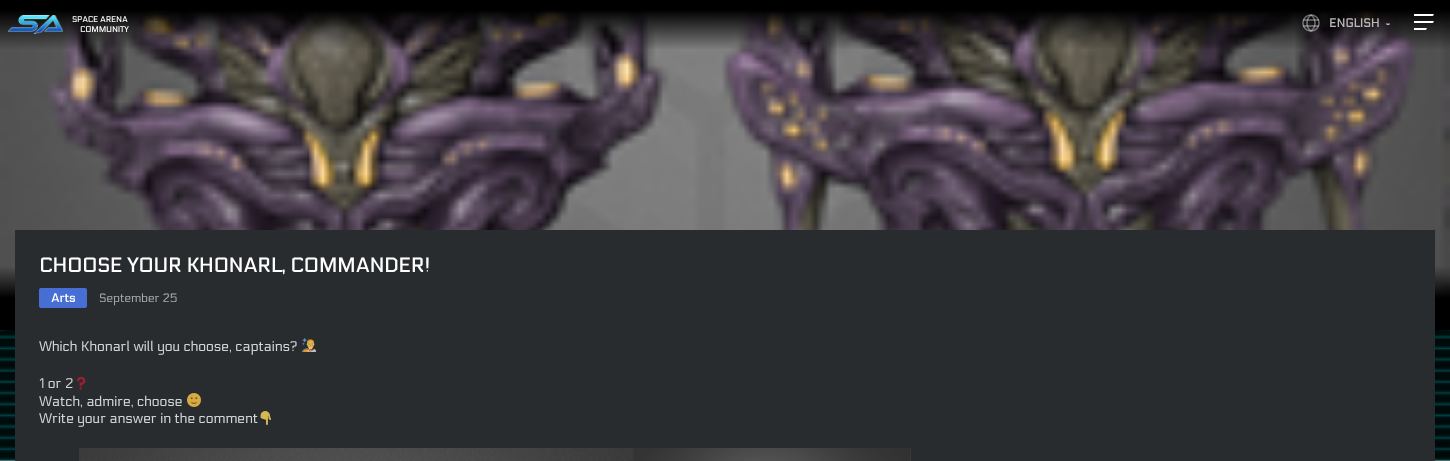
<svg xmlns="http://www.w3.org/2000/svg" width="1450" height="461">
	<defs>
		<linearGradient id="g1" gradientUnits="userSpaceOnUse" x1="725" y1="0" x2="725" y2="50"><stop offset="0.2" stop-color="#000000" /><stop offset="1" stop-color="#000000" stop-opacity="0" /></linearGradient>
		<clipPath id="clip1"><rect x="1385" y="23" width="5" height="2" /></clipPath>
	</defs>
	<rect width="100%" height="100%" fill="#FFFFFF" />
	<image x="0" y="10" width="1450" height="320" href="assets/img2.png" />
	<rect x="0" y="0" width="1450" height="49" fill="url(#g1)" />
	<image x="8" y="15" width="55" height="19" href="assets/img1.png" />
	<g font-family="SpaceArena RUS" font-size="8" font-weight="700" fill="#FFFFFF">
		<text x="72" y="22">SPACE ARENA</text>
		<text x="80" y="32">COMMUNITY</text>
	</g>
	<image x="0" y="330" width="1450" height="131" href="assets/img8.png" />
	<rect x="15" y="230" width="1420" height="231" fill="#292C2F" />
	<text x="39" y="272" font-family="SpaceArena RUS" font-size="20" font-weight="700" fill="#FFFFFF">CHOOSE YOUR KHONARL, COMMANDER!</text>
	<rect x="39" y="288" width="48" height="20" rx="2" fill="#466ED4" />
	<text x="51" y="302" font-family="SpaceArena RUS" font-size="12" font-weight="700" fill="#FFFFFF">Arts</text>
	<text x="99" y="302" font-family="SpaceArena RUS" font-size="12" fill="#A9ABAC">September 25</text>
	<text x="39" y="351" font-family="SpaceArena RUS" font-size="14" fill="#D4D5D5">Which Khonarl will you choose, captains?</text>
	<image x="302" y="338" width="14" height="14" href="assets/img3.png" />
	<text x="39" y="388" font-family="SpaceArena RUS" font-size="14" fill="#D4D5D5">1 or 2</text>
	<image x="77" y="376" width="9" height="14" href="assets/img4.png" />
	<text x="39" y="406" font-family="SpaceArena RUS" font-size="14" fill="#D4D5D5">Watch, admire, choose</text>
	<image x="187" y="393" width="14" height="14" href="assets/img5.png" />
	<text x="39" y="423" font-family="SpaceArena RUS" font-size="14" fill="#D4D5D5">Write your answer in the comment</text>
	<image x="260" y="411" width="11" height="14" href="assets/img6.png" />
	<image x="79" y="448" width="832" height="13" href="assets/img7.png" />
	<image x="1302" y="14" width="18" height="18" href="assets/img9.png" />
	<text x="1329" y="27" font-family="SpaceArena RUS" font-size="12" font-weight="700" fill="#BAB9BA">ENGLISH</text>
	<g clip-path="url(#clip1)">
		<path d="M1388 26L1385.5 23.5H1390.5Z" fill="#BEBEBE" />
	</g>
	<image x="1414" y="14" width="20" height="16" href="assets/img10.png" />
</svg>
